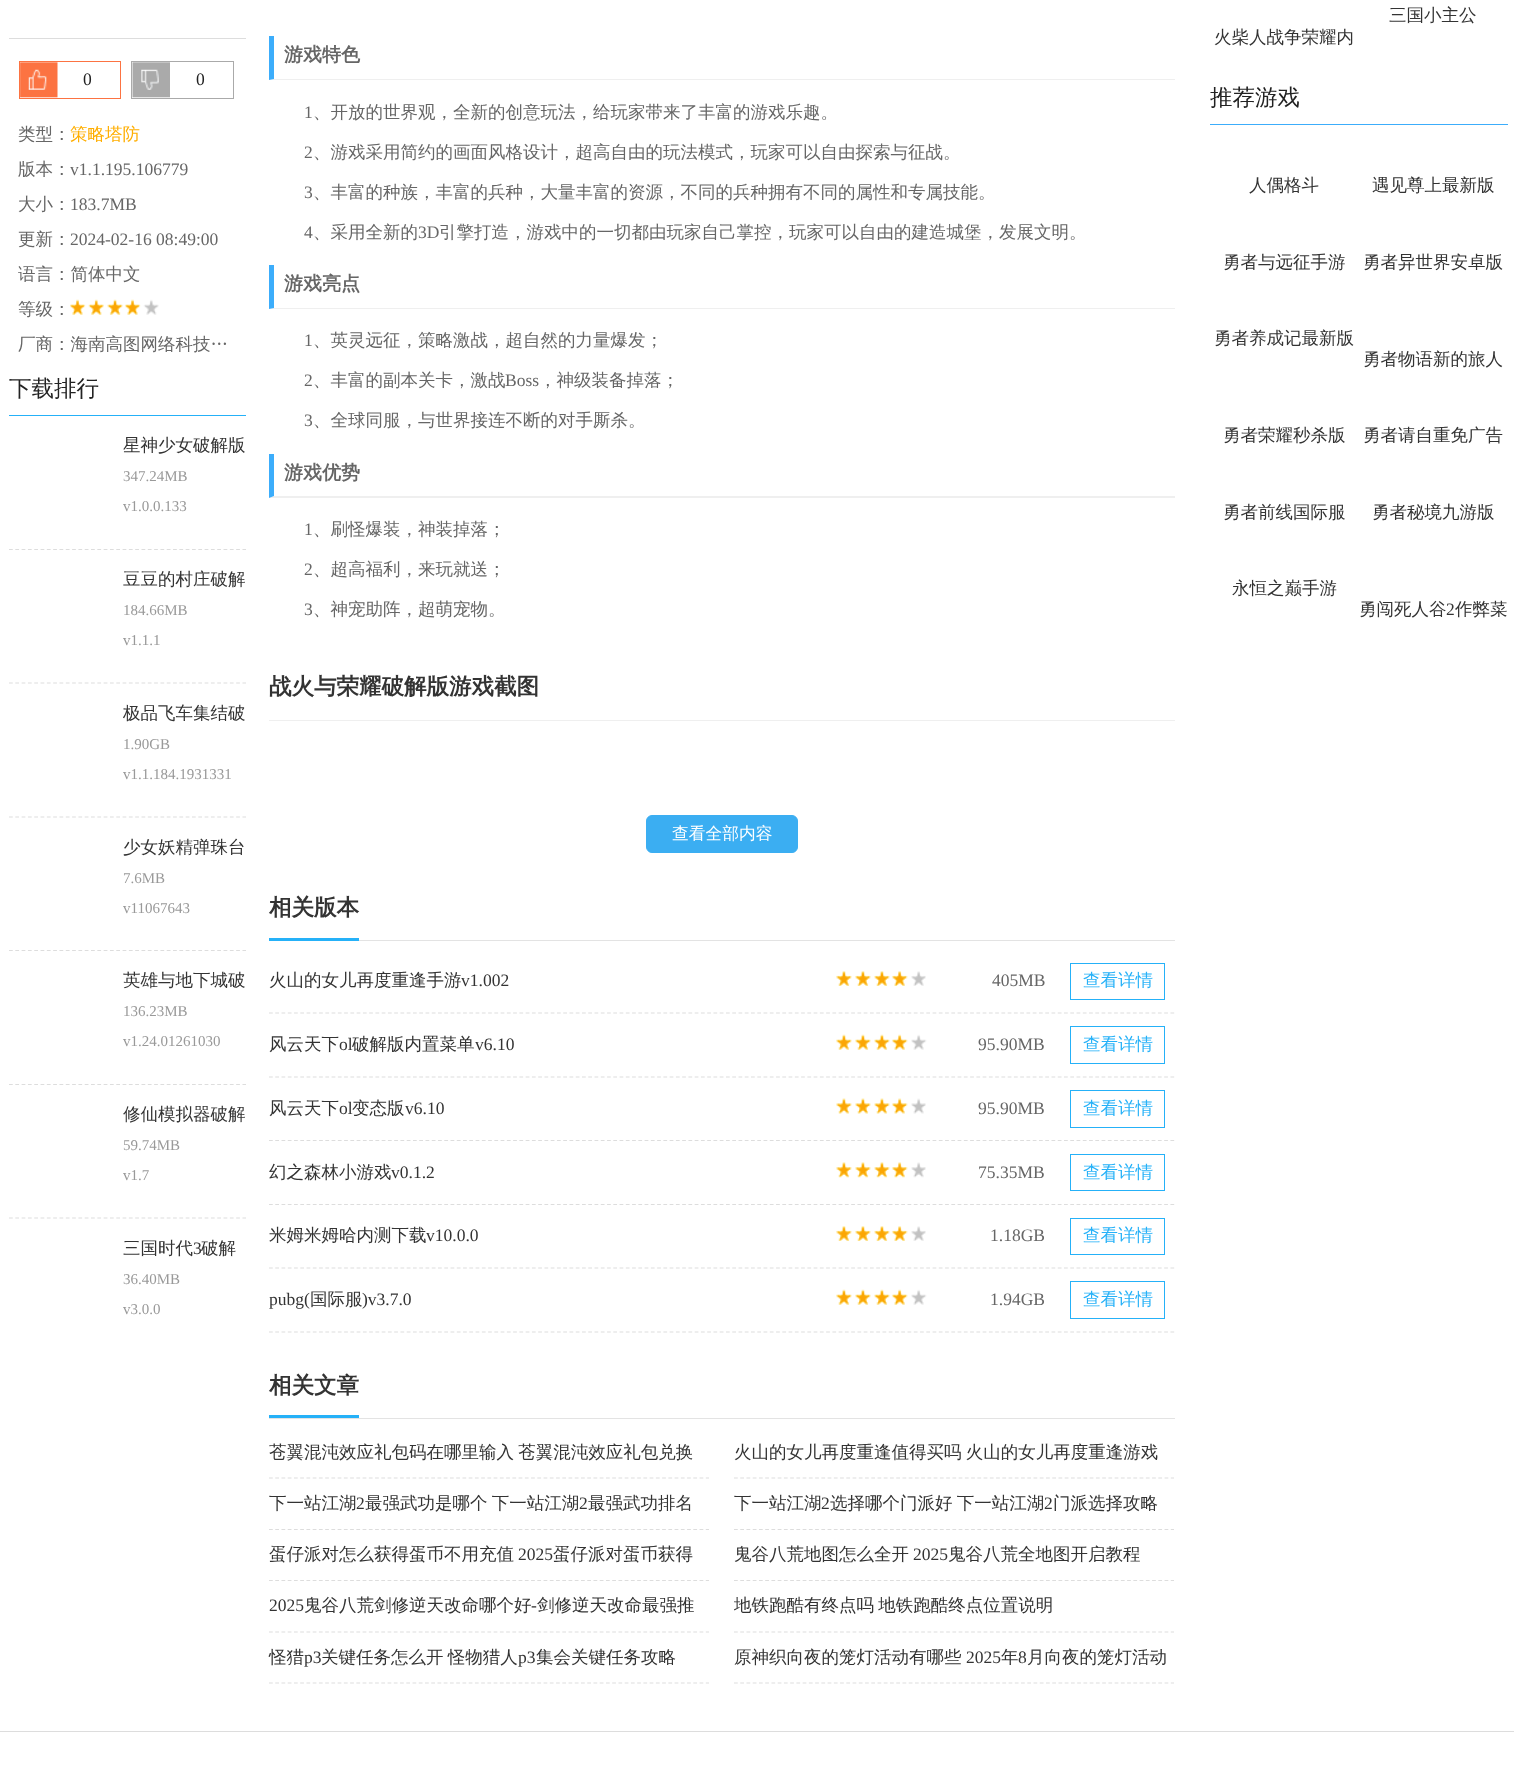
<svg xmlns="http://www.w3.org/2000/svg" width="1514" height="1771">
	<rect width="100%" height="100%" fill="#FFFFFF" />
	<rect x="9" y="38" width="237" height="1" fill="#DDDDDD" />
	<image x="20" y="62" width="38" height="36" href="assets/img1.png" />
	<rect x="19.5" y="61.5" width="101" height="37" fill="none" stroke="#FC7342" />
	<text x="83" y="85" font-family="Liberation Serif" font-size="17.5" fill="#222222">0</text>
	<image x="132" y="62" width="38" height="36" href="assets/img2.png" />
	<rect x="131.5" y="61.5" width="102" height="37" fill="none" stroke="#AAAAAA" />
	<text x="196" y="85" font-family="Liberation Serif" font-size="17.5" fill="#222222">0</text>
	<text x="18" y="140" font-family="WenQuanYi Zen Hei" font-size="17.5" font-weight="500" fill="#666666">类型：</text>
	<text x="70" y="140" font-family="WenQuanYi Zen Hei" font-size="17.5" font-weight="500" fill="#FFAE00">策略塔防</text>
	<text x="18" y="175" font-family="WenQuanYi Zen Hei" font-size="17.5" font-weight="500" fill="#666666">版本：</text>
	<text x="70" y="175" font-family="Liberation Serif" font-size="17.5" fill="#666666">v1.1.195.106779</text>
	<text x="18" y="210" font-family="WenQuanYi Zen Hei" font-size="17.5" font-weight="500" fill="#666666">大小：</text>
	<text x="70" y="210" font-family="Liberation Serif" font-size="17.5" fill="#666666">183.7MB</text>
	<text x="18" y="245" font-family="WenQuanYi Zen Hei" font-size="17.5" font-weight="500" fill="#666666">更新：</text>
	<text x="70" y="245" font-family="Liberation Serif" font-size="17.5" fill="#666666">2024-02-16 08:49:00</text>
	<g font-family="WenQuanYi Zen Hei" font-size="17.5" font-weight="500" fill="#666666">
		<text x="18" y="280">语言：简体中文</text>
		<text x="18" y="315">等级：</text>
	</g>
	<image x="70" y="299" width="89" height="16" href="assets/img3.png" />
	<text x="18" y="350" font-family="WenQuanYi Zen Hei" font-size="17.5" font-weight="500" fill="#666666">厂商：海南高图网络科技…</text>
	<rect x="9" y="415" width="237" height="1" fill="#25B1F8" />
	<text x="9" y="396" font-family="WenQuanYi Zen Hei" font-size="22.5" font-weight="500" fill="#222222">下载排行</text>
	<text x="123" y="451" font-family="WenQuanYi Zen Hei" font-size="17.5" font-weight="500" fill="#333333">星神少女破解版</text>
	<g font-family="Liberation Serif" font-size="15" fill="#999999">
		<text x="123" y="481">347.24MB</text>
		<text x="123" y="511">v1.0.0.133</text>
	</g>
	<path d="M9 549.5H246" fill="none" stroke="#DDDDDD" stroke-width="1.2" stroke-dasharray="3.75 2.56" />
	<text x="123" y="585" font-family="WenQuanYi Zen Hei" font-size="17.5" font-weight="500" fill="#333333">豆豆的村庄破解</text>
	<g font-family="Liberation Serif" font-size="15" fill="#999999">
		<text x="123" y="615">184.66MB</text>
		<text x="123" y="645">v1.1.1</text>
	</g>
	<path d="M9 683H246" fill="none" stroke="#DDDDDD" stroke-width="1.2" stroke-dasharray="3.75 2.56" />
	<text x="123" y="719" font-family="WenQuanYi Zen Hei" font-size="17.5" font-weight="500" fill="#333333">极品飞车集结破</text>
	<g font-family="Liberation Serif" font-size="15" fill="#999999">
		<text x="123" y="749">1.90GB</text>
		<text x="123" y="779">v1.1.184.1931331</text>
	</g>
	<path d="M9 817H246" fill="none" stroke="#DDDDDD" stroke-width="1.2" stroke-dasharray="3.75 2.56" />
	<text x="123" y="853" font-family="WenQuanYi Zen Hei" font-size="17.5" font-weight="500" fill="#333333">少女妖精弹珠台</text>
	<g font-family="Liberation Serif" font-size="15" fill="#999999">
		<text x="123" y="883">7.6MB</text>
		<text x="123" y="913">v11067643</text>
	</g>
	<path d="M9 950.5H246" fill="none" stroke="#DDDDDD" stroke-width="1.2" stroke-dasharray="3.75 2.56" />
	<text x="123" y="986" font-family="WenQuanYi Zen Hei" font-size="17.5" font-weight="500" fill="#333333">英雄与地下城破</text>
	<g font-family="Liberation Serif" font-size="15" fill="#999999">
		<text x="123" y="1016">136.23MB</text>
		<text x="123" y="1046">v1.24.01261030</text>
	</g>
	<path d="M9 1084.5H246" fill="none" stroke="#DDDDDD" stroke-width="1.2" stroke-dasharray="3.75 2.56" />
	<text x="123" y="1120" font-family="WenQuanYi Zen Hei" font-size="17.5" font-weight="500" fill="#333333">修仙模拟器破解</text>
	<g font-family="Liberation Serif" font-size="15" fill="#999999">
		<text x="123" y="1150">59.74MB</text>
		<text x="123" y="1180">v1.7</text>
	</g>
	<path d="M9 1218H246" fill="none" stroke="#DDDDDD" stroke-width="1.2" stroke-dasharray="3.75 2.56" />
	<text x="123" y="1254" font-family="WenQuanYi Zen Hei" font-size="17.5" font-weight="500" fill="#333333">三国时代</text>
	<text x="193" y="1254" font-family="Liberation Serif" font-size="17.5" fill="#333333">3</text>
	<text x="201" y="1254" font-family="WenQuanYi Zen Hei" font-size="17.5" font-weight="500" fill="#333333">破解</text>
	<g font-family="Liberation Serif" font-size="15" fill="#999999">
		<text x="123" y="1284">36.40MB</text>
		<text x="123" y="1314">v3.0.0</text>
	</g>
	<path d="M1175 80H269L274 79H1175Z" fill="#EFEFEF" />
	<path d="M269 80V36H274V79Z" fill="#3CADFB" />
	<text x="284" y="61" font-family="WenQuanYi Zen Hei" font-size="19" font-weight="700" fill="#666666">游戏特色</text>
	<text x="304" y="118" font-family="Liberation Serif" font-size="17.5" fill="#666666">1</text>
	<text x="313" y="118" font-family="WenQuanYi Zen Hei" font-size="17.5" font-weight="500" fill="#666666">、开放的世界观，全新的创意玩法，给玩家带来了丰富的游戏乐趣。</text>
	<text x="304" y="158" font-family="Liberation Serif" font-size="17.5" fill="#666666">2</text>
	<text x="313" y="158" font-family="WenQuanYi Zen Hei" font-size="17.5" font-weight="500" fill="#666666">、游戏采用简约的画面风格设计，超高自由的玩法模式，玩家可以自由探索与征战。</text>
	<text x="304" y="198" font-family="Liberation Serif" font-size="17.5" fill="#666666">3</text>
	<text x="313" y="198" font-family="WenQuanYi Zen Hei" font-size="17.5" font-weight="500" fill="#666666">、丰富的种族，丰富的兵种，大量丰富的资源，不同的兵种拥有不同的属性和专属技能。</text>
	<text x="304" y="238" font-family="Liberation Serif" font-size="17.5" fill="#666666">4</text>
	<text x="313" y="238" font-family="WenQuanYi Zen Hei" font-size="17.5" font-weight="500" fill="#666666">、采用全新的</text>
	<text x="418" y="238" font-family="Liberation Serif" font-size="17.5" fill="#666666">3D</text>
	<text x="439" y="238" font-family="WenQuanYi Zen Hei" font-size="17.5" font-weight="500" fill="#666666">引擎打造，游戏中的一切都由玩家自己掌控，玩家可以自由的建造城堡，发展文明。</text>
	<path d="M1175 309H269L274 308H1175Z" fill="#EFEFEF" />
	<path d="M269 309V265H274V308Z" fill="#3CADFB" />
	<text x="284" y="290" font-family="WenQuanYi Zen Hei" font-size="19" font-weight="700" fill="#666666">游戏亮点</text>
	<text x="304" y="346" font-family="Liberation Serif" font-size="17.5" fill="#666666">1</text>
	<text x="313" y="346" font-family="WenQuanYi Zen Hei" font-size="17.5" font-weight="500" fill="#666666">、英灵远征，策略激战，超自然的力量爆发；</text>
	<text x="304" y="386" font-family="Liberation Serif" font-size="17.5" fill="#666666">2</text>
	<text x="313" y="386" font-family="WenQuanYi Zen Hei" font-size="17.5" font-weight="500" fill="#666666">、丰富的副本关卡，激战</text>
	<text x="505" y="386" font-family="Liberation Serif" font-size="17.5" fill="#666666">Boss</text>
	<text x="539" y="386" font-family="WenQuanYi Zen Hei" font-size="17.5" font-weight="500" fill="#666666">，神级装备掉落；</text>
	<text x="304" y="426" font-family="Liberation Serif" font-size="17.5" fill="#666666">3</text>
	<text x="313" y="426" font-family="WenQuanYi Zen Hei" font-size="17.5" font-weight="500" fill="#666666">、全球同服，与世界接连不断的对手厮杀。</text>
	<path d="M1175 498H269L274 496H1175Z" fill="#EFEFEF" />
	<path d="M269 498V454H274V496Z" fill="#3CADFB" />
	<text x="284" y="479" font-family="WenQuanYi Zen Hei" font-size="19" font-weight="700" fill="#666666">游戏优势</text>
	<text x="304" y="535" font-family="Liberation Serif" font-size="17.5" fill="#666666">1</text>
	<text x="313" y="535" font-family="WenQuanYi Zen Hei" font-size="17.5" font-weight="500" fill="#666666">、刷怪爆装，神装掉落；</text>
	<text x="304" y="575" font-family="Liberation Serif" font-size="17.5" fill="#666666">2</text>
	<text x="313" y="575" font-family="WenQuanYi Zen Hei" font-size="17.5" font-weight="500" fill="#666666">、超高福利，来玩就送；</text>
	<text x="304" y="615" font-family="Liberation Serif" font-size="17.5" fill="#666666">3</text>
	<text x="313" y="615" font-family="WenQuanYi Zen Hei" font-size="17.5" font-weight="500" fill="#666666">、神宠助阵，超萌宠物。</text>
	<rect x="269" y="720" width="906" height="1" fill="#EFEFEF" />
	<text x="269" y="694" font-family="WenQuanYi Zen Hei" font-size="22.5" font-weight="700" fill="#333333">战火与荣耀破解版游戏截图</text>
	<rect x="646.5" y="815.5" width="151" height="37" rx="5.5" fill="#3BAEF2" stroke="#3BAEF2" />
	<text x="672" y="839" font-family="WenQuanYi Zen Hei" font-size="16.75" font-weight="500" fill="#FFFFFF">查看全部内容</text>
	<rect x="359" y="940" width="816" height="1" fill="#E3E3E3" />
	<rect x="269" y="938" width="90" height="3" fill="#25B1F8" />
	<text x="269" y="915" font-family="WenQuanYi Zen Hei" font-size="22.5" font-weight="700" fill="#333333">相关版本</text>
	<path d="M269 1013H1175" fill="none" stroke="#DDDDDD" stroke-width="1.2" stroke-dasharray="3.75 2.51" />
	<text x="269" y="986" font-family="WenQuanYi Zen Hei" font-size="17.5" font-weight="500" fill="#333333">火山的女儿再度重逢手游</text>
	<text x="461" y="986" font-family="Liberation Serif" font-size="17.5" fill="#333333">v1.002</text>
	<image x="836" y="971" width="90" height="15" href="assets/img4.png" />
	<text x="992" y="986" font-family="Liberation Serif" font-size="17.5" fill="#666666">405MB</text>
	<rect x="1070.5" y="963.5" width="94" height="36" fill="none" stroke="#25B1F8" />
	<text x="1083" y="986" font-family="WenQuanYi Zen Hei" font-size="17.5" font-weight="500" fill="#25B1F8">查看详情</text>
	<path d="M269 1077H1175" fill="none" stroke="#DDDDDD" stroke-width="1.2" stroke-dasharray="3.75 2.51" />
	<text x="269" y="1050" font-family="WenQuanYi Zen Hei" font-size="17.5" font-weight="500" fill="#333333">风云天下</text>
	<text x="339" y="1050" font-family="Liberation Serif" font-size="17.5" fill="#333333">ol</text>
	<text x="352" y="1050" font-family="WenQuanYi Zen Hei" font-size="17.5" font-weight="500" fill="#333333">破解版内置菜单</text>
	<text x="475" y="1050" font-family="Liberation Serif" font-size="17.5" fill="#333333">v6.10</text>
	<image x="836" y="1034" width="91" height="16" href="assets/img5.png" />
	<text x="978" y="1050" font-family="Liberation Serif" font-size="17.5" fill="#666666">95.90MB</text>
	<rect x="1070.5" y="1026.5" width="94" height="37" fill="none" stroke="#25B1F8" />
	<text x="1083" y="1050" font-family="WenQuanYi Zen Hei" font-size="17.5" font-weight="500" fill="#25B1F8">查看详情</text>
	<path d="M269 1140.5H1175" fill="none" stroke="#DDDDDD" stroke-width="1.2" stroke-dasharray="3.75 2.51" />
	<text x="269" y="1114" font-family="WenQuanYi Zen Hei" font-size="17.5" font-weight="500" fill="#333333">风云天下</text>
	<text x="339" y="1114" font-family="Liberation Serif" font-size="17.5" fill="#333333">ol</text>
	<text x="352" y="1114" font-family="WenQuanYi Zen Hei" font-size="17.5" font-weight="500" fill="#333333">变态版</text>
	<text x="405" y="1114" font-family="Liberation Serif" font-size="17.5" fill="#333333">v6.10</text>
	<image x="836" y="1098" width="90" height="16" href="assets/img6.png" />
	<text x="978" y="1114" font-family="Liberation Serif" font-size="17.5" fill="#666666">95.90MB</text>
	<rect x="1070.5" y="1090.5" width="94" height="37" fill="none" stroke="#25B1F8" />
	<text x="1083" y="1114" font-family="WenQuanYi Zen Hei" font-size="17.5" font-weight="500" fill="#25B1F8">查看详情</text>
	<path d="M269 1204.5H1175" fill="none" stroke="#DDDDDD" stroke-width="1.2" stroke-dasharray="3.75 2.51" />
	<text x="269" y="1178" font-family="WenQuanYi Zen Hei" font-size="17.5" font-weight="500" fill="#333333">幻之森林小游戏</text>
	<text x="391" y="1178" font-family="Liberation Serif" font-size="17.5" fill="#333333">v0.1.2</text>
	<image x="836" y="1162" width="90" height="16" href="assets/img7.png" />
	<text x="978" y="1178" font-family="Liberation Serif" font-size="17.5" fill="#666666">75.35MB</text>
	<rect x="1070.5" y="1154.5" width="94" height="36" fill="none" stroke="#25B1F8" />
	<text x="1083" y="1178" font-family="WenQuanYi Zen Hei" font-size="17.5" font-weight="500" fill="#25B1F8">查看详情</text>
	<path d="M269 1268H1175" fill="none" stroke="#DDDDDD" stroke-width="1.2" stroke-dasharray="3.75 2.51" />
	<text x="269" y="1241" font-family="WenQuanYi Zen Hei" font-size="17.5" font-weight="500" fill="#333333">米姆米姆哈内测下载</text>
	<text x="426" y="1241" font-family="Liberation Serif" font-size="17.5" fill="#333333">v10.0.0</text>
	<image x="836" y="1226" width="90" height="15" href="assets/img4.png" />
	<text x="990" y="1241" font-family="Liberation Serif" font-size="17.5" fill="#666666">1.18GB</text>
	<rect x="1070.5" y="1218.5" width="94" height="36" fill="none" stroke="#25B1F8" />
	<text x="1083" y="1241" font-family="WenQuanYi Zen Hei" font-size="17.5" font-weight="500" fill="#25B1F8">查看详情</text>
	<path d="M269 1332H1175" fill="none" stroke="#DDDDDD" stroke-width="1.2" stroke-dasharray="3.75 2.51" />
	<text x="269" y="1305" font-family="Liberation Serif" font-size="17.5" fill="#333333">pubg(</text>
	<text x="310" y="1305" font-family="WenQuanYi Zen Hei" font-size="17.5" font-weight="500" fill="#333333">国际服</text>
	<text x="362" y="1305" font-family="Liberation Serif" font-size="17.5" fill="#333333">)v3.7.0</text>
	<image x="836" y="1289" width="91" height="16" href="assets/img5.png" />
	<text x="990" y="1305" font-family="Liberation Serif" font-size="17.5" fill="#666666">1.94GB</text>
	<rect x="1070.5" y="1281.5" width="94" height="37" fill="none" stroke="#25B1F8" />
	<text x="1083" y="1305" font-family="WenQuanYi Zen Hei" font-size="17.5" font-weight="500" fill="#25B1F8">查看详情</text>
	<rect x="269" y="1418" width="906" height="1" fill="#E3E3E3" />
	<rect x="269" y="1415" width="90" height="3" fill="#25B1F8" />
	<text x="269" y="1393" font-family="WenQuanYi Zen Hei" font-size="22.5" font-weight="700" fill="#333333">相关文章</text>
	<path d="M269 1478H709" fill="none" stroke="#DDDDDD" stroke-width="1.2" stroke-dasharray="3.75 2.49" />
	<text x="269" y="1458" word-spacing="-1" font-family="WenQuanYi Zen Hei" font-size="17.5" font-weight="500" fill="#333333">苍翼混沌效应礼包码在哪里输入 苍翼混沌效应礼包兑换</text>
	<path d="M734 1478H1174" fill="none" stroke="#DDDDDD" stroke-width="1.2" stroke-dasharray="3.75 2.49" />
	<text x="734" y="1458" word-spacing="-1" font-family="WenQuanYi Zen Hei" font-size="17.5" font-weight="500" fill="#333333">火山的女儿再度重逢值得买吗 火山的女儿再度重逢游戏</text>
	<path d="M269 1529.5H709" fill="none" stroke="#DDDDDD" stroke-width="1.2" stroke-dasharray="3.75 2.49" />
	<text x="269" y="1509" font-family="WenQuanYi Zen Hei" font-size="17.5" font-weight="500" fill="#333333">下一站江湖</text>
	<text x="356" y="1509" font-family="Liberation Serif" font-size="17.5" fill="#333333">2</text>
	<text x="365" y="1509" word-spacing="-1" font-family="WenQuanYi Zen Hei" font-size="17.5" font-weight="500" fill="#333333">最强武功是哪个 下一站江湖</text>
	<text x="579" y="1509" font-family="Liberation Serif" font-size="17.5" fill="#333333">2</text>
	<text x="588" y="1509" font-family="WenQuanYi Zen Hei" font-size="17.5" font-weight="500" fill="#333333">最强武功排名</text>
	<path d="M734 1529.5H1174" fill="none" stroke="#DDDDDD" stroke-width="1.2" stroke-dasharray="3.75 2.49" />
	<text x="734" y="1509" font-family="WenQuanYi Zen Hei" font-size="17.5" font-weight="500" fill="#333333">下一站江湖</text>
	<text x="821" y="1509" font-family="Liberation Serif" font-size="17.5" fill="#333333">2</text>
	<text x="830" y="1509" word-spacing="-1" font-family="WenQuanYi Zen Hei" font-size="17.5" font-weight="500" fill="#333333">选择哪个门派好 下一站江湖</text>
	<text x="1044" y="1509" font-family="Liberation Serif" font-size="17.5" fill="#333333">2</text>
	<text x="1053" y="1509" font-family="WenQuanYi Zen Hei" font-size="17.5" font-weight="500" fill="#333333">门派选择攻略</text>
	<path d="M269 1580.5H709" fill="none" stroke="#DDDDDD" stroke-width="1.2" stroke-dasharray="3.75 2.49" />
	<text x="269" y="1560" font-family="WenQuanYi Zen Hei" font-size="17.5" font-weight="500" fill="#333333">蛋仔派对怎么获得蛋币不用充值</text>
	<text x="518" y="1560" font-family="Liberation Serif" font-size="17.5" fill="#333333">2025</text>
	<text x="553" y="1560" font-family="WenQuanYi Zen Hei" font-size="17.5" font-weight="500" fill="#333333">蛋仔派对蛋币获得</text>
	<path d="M734 1580.5H1174" fill="none" stroke="#DDDDDD" stroke-width="1.2" stroke-dasharray="3.75 2.49" />
	<text x="734" y="1560" font-family="WenQuanYi Zen Hei" font-size="17.5" font-weight="500" fill="#333333">鬼谷八荒地图怎么全开</text>
	<text x="913" y="1560" font-family="Liberation Serif" font-size="17.5" fill="#333333">2025</text>
	<text x="948" y="1560" font-family="WenQuanYi Zen Hei" font-size="17.5" font-weight="500" fill="#333333">鬼谷八荒全地图开启教程</text>
	<path d="M269 1632H709" fill="none" stroke="#DDDDDD" stroke-width="1.2" stroke-dasharray="3.75 2.49" />
	<text x="269" y="1611" font-family="Liberation Serif" font-size="17.5" fill="#333333">2025</text>
	<text x="304" y="1611" font-family="WenQuanYi Zen Hei" font-size="17.5" font-weight="500" fill="#333333">鬼谷八荒剑修逆天改命哪个好</text>
	<text x="531" y="1611" font-family="Liberation Serif" font-size="17.5" fill="#333333">-</text>
	<text x="537" y="1611" font-family="WenQuanYi Zen Hei" font-size="17.5" font-weight="500" fill="#333333">剑修逆天改命最强推</text>
	<path d="M734 1632H1174" fill="none" stroke="#DDDDDD" stroke-width="1.2" stroke-dasharray="3.75 2.49" />
	<text x="734" y="1611" word-spacing="-1" font-family="WenQuanYi Zen Hei" font-size="17.5" font-weight="500" fill="#333333">地铁跑酷有终点吗 地铁跑酷终点位置说明</text>
	<path d="M269 1683H709" fill="none" stroke="#DDDDDD" stroke-width="1.2" stroke-dasharray="3.75 2.49" />
	<text x="269" y="1663" font-family="WenQuanYi Zen Hei" font-size="17.5" font-weight="500" fill="#333333">怪猎</text>
	<text x="304" y="1663" font-family="Liberation Serif" font-size="17.5" fill="#333333">p3</text>
	<text x="321" y="1663" word-spacing="-1" font-family="WenQuanYi Zen Hei" font-size="17.5" font-weight="500" fill="#333333">关键任务怎么开 怪物猎人</text>
	<text x="518" y="1663" font-family="Liberation Serif" font-size="17.5" fill="#333333">p3</text>
	<text x="536" y="1663" font-family="WenQuanYi Zen Hei" font-size="17.5" font-weight="500" fill="#333333">集会关键任务攻略</text>
	<path d="M734 1683H1174" fill="none" stroke="#DDDDDD" stroke-width="1.2" stroke-dasharray="3.75 2.49" />
	<text x="734" y="1663" font-family="WenQuanYi Zen Hei" font-size="17.5" font-weight="500" fill="#333333">原神织向夜的笼灯活动有哪些</text>
	<text x="966" y="1663" font-family="Liberation Serif" font-size="17.5" fill="#333333">2025</text>
	<text x="1001" y="1663" font-family="WenQuanYi Zen Hei" font-size="17.5" font-weight="500" fill="#333333">年</text>
	<text x="1018" y="1663" font-family="Liberation Serif" font-size="17.5" fill="#333333">8</text>
	<g font-family="WenQuanYi Zen Hei" font-size="17.5" font-weight="500" fill="#333333">
		<text x="1027" y="1663">月向夜的笼灯活动</text>
		<text x="1389" y="21">三国小主公</text>
		<text x="1214" y="43">火柴人战争荣耀内</text>
	</g>
	<rect x="1210" y="124" width="298" height="1" fill="#3CADFB" />
	<text x="1210" y="105" font-family="WenQuanYi Zen Hei" font-size="22.5" font-weight="500" fill="#222222">推荐游戏</text>
	<g font-family="WenQuanYi Zen Hei" font-size="17.5" font-weight="500" fill="#333333">
		<text x="1249" y="191">人偶格斗</text>
		<text x="1372" y="191">遇见尊上最新版</text>
		<text x="1223" y="268">勇者与远征手游</text>
		<text x="1363" y="268">勇者异世界安卓版</text>
		<text x="1214" y="344">勇者养成记最新版</text>
		<text x="1363" y="365">勇者物语新的旅人</text>
		<text x="1223" y="441">勇者荣耀秒杀版</text>
		<text x="1363" y="441">勇者请自重免广告</text>
		<text x="1223" y="518">勇者前线国际服</text>
		<text x="1372" y="518">勇者秘境九游版</text>
		<text x="1232" y="594">永恒之巅手游</text>
		<text x="1359" y="615">勇闯死人谷</text>
	</g>
	<text x="1446" y="615" font-family="Liberation Serif" font-size="17.5" fill="#333333">2</text>
	<text x="1455" y="615" font-family="WenQuanYi Zen Hei" font-size="17.5" font-weight="500" fill="#333333">作弊菜</text>
	<rect x="0" y="1731" width="1514" height="1" fill="#DDDDDD" />
</svg>
